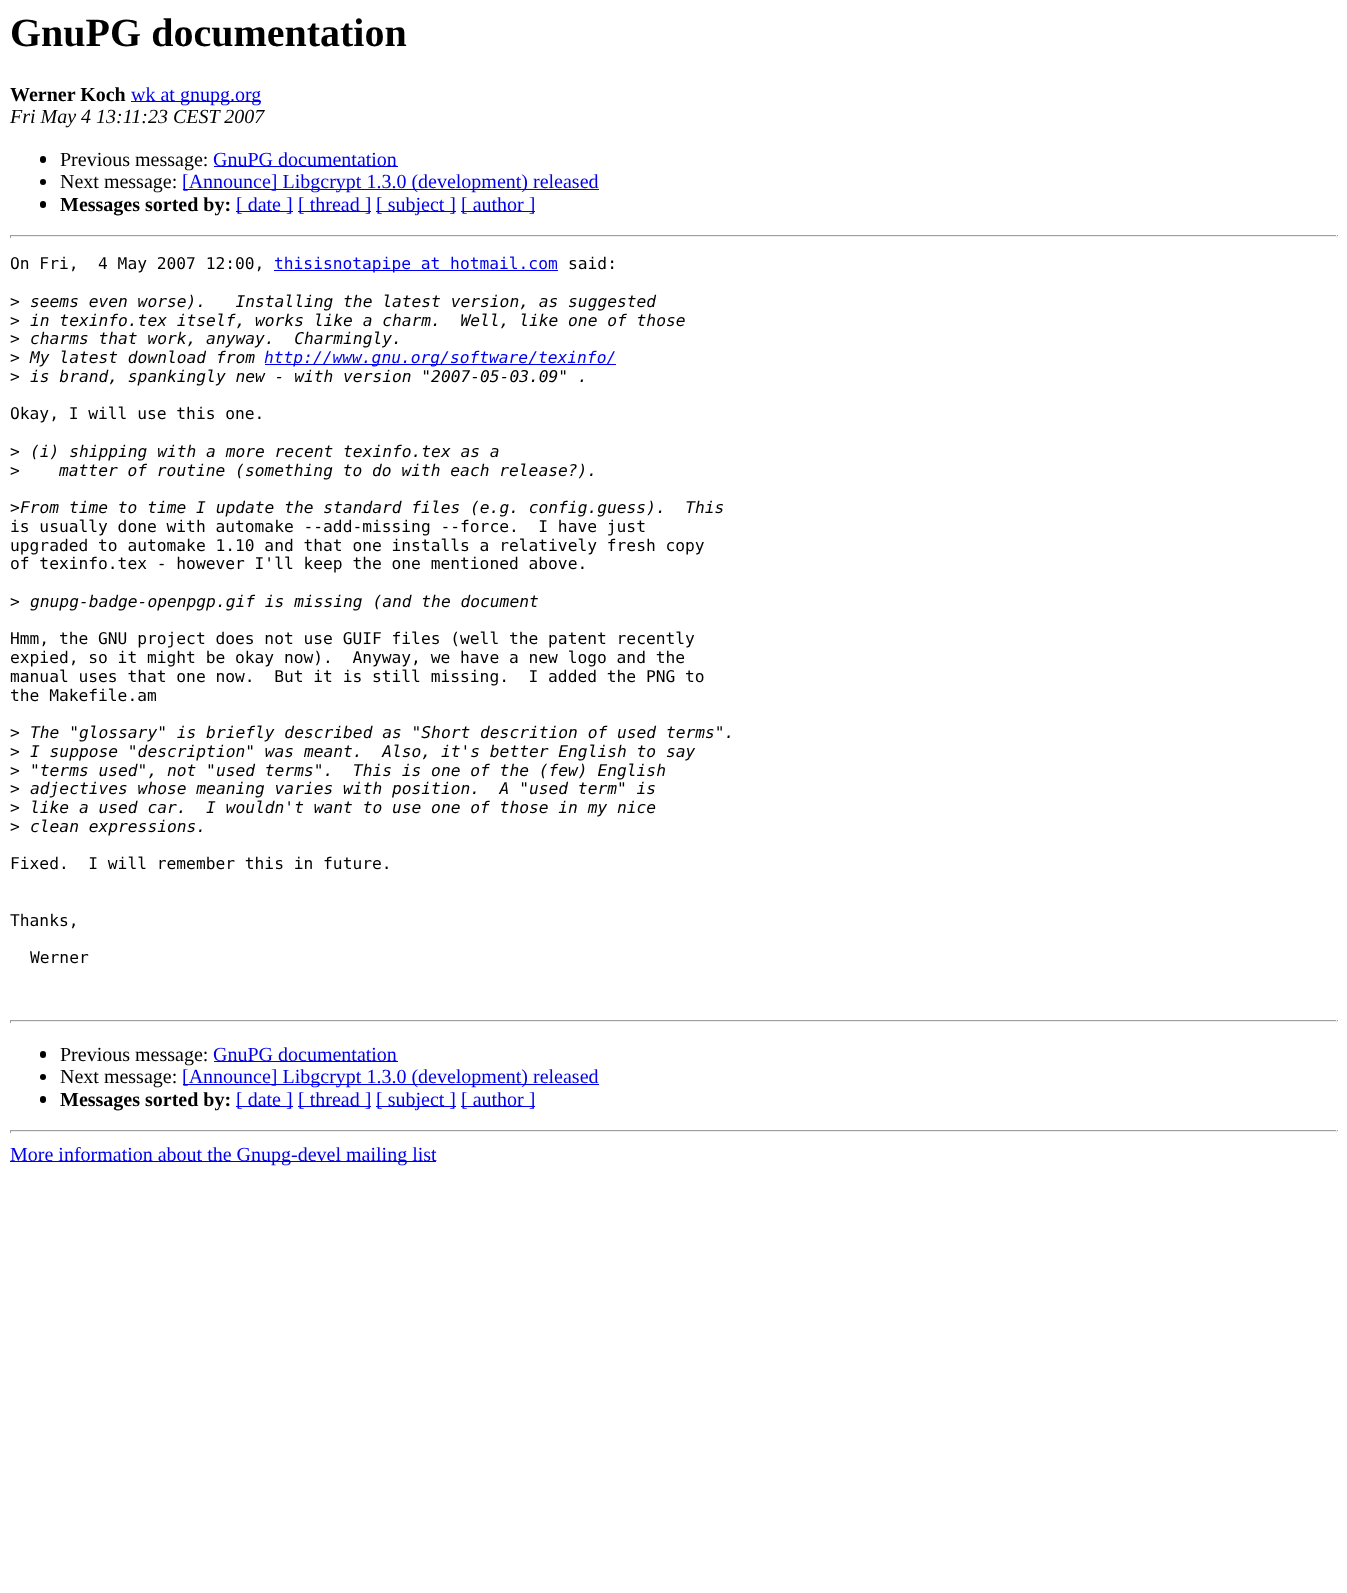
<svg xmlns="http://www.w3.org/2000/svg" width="1347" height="1593">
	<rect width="100%" height="100%" fill="#FFFFFF" />
	<text x="10" y="46" font-family="Liberation Serif" font-size="40" font-weight="700" fill="#000000">GnuPG documentation</text>
	<text x="10" y="101" font-family="Liberation Serif" font-size="20" font-weight="700" fill="#000000">Werner Koch</text>
	<rect x="131" y="101" width="130" height="1" fill="#0000EE" />
	<text x="131" y="101" font-family="Liberation Serif" font-size="20" fill="#0000EE">wk at gnupg.org</text>
	<text x="10" y="123" font-family="Liberation Serif" font-size="20" font-style="italic" fill="#000000">Fri May 4 13:11:23 CEST 2007</text>
	<rect x="40" y="156" width="6" height="7" rx="3" fill="#000000" />
	<text x="60" y="166" font-family="Liberation Serif" font-size="20" fill="#000000">Previous message:</text>
	<rect x="214" y="166" width="184" height="1" fill="#0000EE" />
	<text x="213" y="166" font-family="Liberation Serif" font-size="20" fill="#0000EE">GnuPG documentation</text>
	<circle cx="43" cy="182" r="3" fill="#000000" />
	<text x="60" y="188" font-family="Liberation Serif" font-size="20" fill="#000000">Next message:</text>
	<rect x="183" y="189" width="416" height="1" fill="#0000EE" />
	<text x="182" y="188" font-family="Liberation Serif" font-size="20" fill="#0000EE">[Announce] Libgcrypt 1.3.0 (development) released</text>
	<rect x="40" y="201" width="6" height="7" rx="3" fill="#000000" />
	<text x="60" y="211" font-family="Liberation Serif" font-size="20" font-weight="700" fill="#000000">Messages sorted by:</text>
	<rect x="236" y="211" width="57" height="1" fill="#0000EE" />
	<text x="236" y="211" font-family="Liberation Serif" font-size="20" fill="#0000EE">[ date ]</text>
	<rect x="298" y="211" width="73" height="1" fill="#0000EE" />
	<text x="298" y="211" font-family="Liberation Serif" font-size="20" fill="#0000EE">[ thread ]</text>
	<rect x="376" y="211" width="80" height="1" fill="#0000EE" />
	<text x="376" y="211" font-family="Liberation Serif" font-size="20" fill="#0000EE">[ subject ]</text>
	<rect x="461" y="211" width="74" height="1" fill="#0000EE" />
	<text x="461" y="211" font-family="Liberation Serif" font-size="20" fill="#0000EE">[ author ]</text>
	<rect x="10" y="235" width="1328" height="1" fill="#9F9F9F" />
	<rect x="1336" y="235" width="1" height="3" fill="#EEEEEE" />
	<rect x="10" y="236" width="1328" height="1" fill="#EEEEEE" />
	<rect x="10" y="235" width="1" height="3" fill="#9F9F9F" />
	<text x="10" y="269" font-family="DejaVu Sans Mono" font-size="16.25" fill="#000000" xml:space="preserve">On Fri,  4 May 2007 12:00,</text>
	<rect x="274" y="270" width="284" height="1" fill="#0000EE" />
	<text x="274" y="269" font-family="DejaVu Sans Mono" font-size="16.25" fill="#0000EE">thisisnotapipe at hotmail.com</text>
	<g font-family="DejaVu Sans Mono" font-size="16.25" fill="#000000">
		<text x="568" y="269">said:</text>
		<text x="10" y="307">&gt;</text>
	</g>
	<text x="30" y="307" font-family="DejaVu Sans Mono" font-size="16.25" font-style="italic" fill="#000000" xml:space="preserve">seems even worse).   Installing the latest version, as suggested</text>
	<text x="10" y="326" font-family="DejaVu Sans Mono" font-size="16.25" fill="#000000">&gt;</text>
	<text x="30" y="326" font-family="DejaVu Sans Mono" font-size="16.25" font-style="italic" fill="#000000" xml:space="preserve">in texinfo.tex itself, works like a charm.  Well, like one of those</text>
	<text x="10" y="344" font-family="DejaVu Sans Mono" font-size="16.25" fill="#000000">&gt;</text>
	<text x="30" y="344" font-family="DejaVu Sans Mono" font-size="16.25" font-style="italic" fill="#000000" xml:space="preserve">charms that work, anyway.  Charmingly.</text>
	<text x="10" y="363" font-family="DejaVu Sans Mono" font-size="16.25" fill="#000000">&gt;</text>
	<text x="30" y="363" font-family="DejaVu Sans Mono" font-size="16.25" font-style="italic" fill="#000000">My latest download from</text>
	<rect x="265" y="364" width="351" height="1" fill="#0000EE" />
	<text x="264" y="363" font-family="DejaVu Sans Mono" font-size="16.25" font-style="italic" fill="#0000EE">http://www.gnu.org/software/texinfo/</text>
	<text x="10" y="382" font-family="DejaVu Sans Mono" font-size="16.25" fill="#000000">&gt;</text>
	<text x="30" y="382" font-family="DejaVu Sans Mono" font-size="16.25" font-style="italic" fill="#000000">is brand, spankingly new - with version "2007-05-03.09" .</text>
	<g font-family="DejaVu Sans Mono" font-size="16.25" fill="#000000">
		<text x="10" y="419">Okay, I will use this one.</text>
		<text x="10" y="457">&gt;</text>
	</g>
	<text x="30" y="457" font-family="DejaVu Sans Mono" font-size="16.25" font-style="italic" fill="#000000">(i) shipping with a more recent texinfo.tex as a</text>
	<text x="10" y="476" font-family="DejaVu Sans Mono" font-size="16.25" fill="#000000">&gt;</text>
	<text x="59" y="476" font-family="DejaVu Sans Mono" font-size="16.25" font-style="italic" fill="#000000">matter of routine (something to do with each release?).</text>
	<text x="10" y="513" font-family="DejaVu Sans Mono" font-size="16.25" fill="#000000">&gt;</text>
	<text x="20" y="513" font-family="DejaVu Sans Mono" font-size="16.25" font-style="italic" fill="#000000" xml:space="preserve">From time to time I update the standard files (e.g. config.guess).  This</text>
	<g font-family="DejaVu Sans Mono" font-size="16.25" fill="#000000">
		<text x="10" y="532" xml:space="preserve">is usually done with automake --add-missing --force.  I have just</text>
		<text x="10" y="551">upgraded to automake 1.10 and that one installs a relatively fresh copy</text>
		<text x="10" y="569">of texinfo.tex - however I'll keep the one mentioned above.</text>
		<text x="10" y="607">&gt;</text>
	</g>
	<text x="30" y="607" font-family="DejaVu Sans Mono" font-size="16.25" font-style="italic" fill="#000000">gnupg-badge-openpgp.gif is missing (and the document</text>
	<g font-family="DejaVu Sans Mono" font-size="16.25" fill="#000000">
		<text x="10" y="644">Hmm, the GNU project does not use GUIF files (well the patent recently</text>
		<text x="10" y="663" xml:space="preserve">expied, so it might be okay now).  Anyway, we have a new logo and the</text>
		<text x="10" y="682" xml:space="preserve">manual uses that one now.  But it is still missing.  I added the PNG to</text>
		<text x="10" y="701">the Makefile.am</text>
		<text x="10" y="738">&gt;</text>
	</g>
	<text x="30" y="738" font-family="DejaVu Sans Mono" font-size="16.25" font-style="italic" fill="#000000">The "glossary" is briefly described as "Short descrition of used terms".</text>
	<text x="10" y="757" font-family="DejaVu Sans Mono" font-size="16.25" fill="#000000">&gt;</text>
	<text x="30" y="757" font-family="DejaVu Sans Mono" font-size="16.25" font-style="italic" fill="#000000" xml:space="preserve">I suppose "description" was meant.  Also, it's better English to say</text>
	<text x="10" y="776" font-family="DejaVu Sans Mono" font-size="16.25" fill="#000000">&gt;</text>
	<text x="30" y="776" font-family="DejaVu Sans Mono" font-size="16.25" font-style="italic" fill="#000000" xml:space="preserve">"terms used", not "used terms".  This is one of the (few) English</text>
	<text x="10" y="794" font-family="DejaVu Sans Mono" font-size="16.25" fill="#000000">&gt;</text>
	<text x="30" y="794" font-family="DejaVu Sans Mono" font-size="16.25" font-style="italic" fill="#000000" xml:space="preserve">adjectives whose meaning varies with position.  A "used term" is</text>
	<text x="10" y="813" font-family="DejaVu Sans Mono" font-size="16.25" fill="#000000">&gt;</text>
	<text x="30" y="813" font-family="DejaVu Sans Mono" font-size="16.25" font-style="italic" fill="#000000" xml:space="preserve">like a used car.  I wouldn't want to use one of those in my nice</text>
	<text x="10" y="832" font-family="DejaVu Sans Mono" font-size="16.25" fill="#000000">&gt;</text>
	<text x="30" y="832" font-family="DejaVu Sans Mono" font-size="16.25" font-style="italic" fill="#000000">clean expressions.</text>
	<g font-family="DejaVu Sans Mono" font-size="16.25" fill="#000000">
		<text x="10" y="869" xml:space="preserve">Fixed.  I will remember this in future.</text>
		<text x="10" y="926">Thanks,</text>
		<text x="30" y="963">Werner</text>
	</g>
	<rect x="10" y="1020" width="1328" height="1" fill="#9F9F9F" />
	<rect x="1336" y="1020" width="1" height="3" fill="#EEEEEE" />
	<rect x="10" y="1021" width="1328" height="1" fill="#EEEEEE" />
	<rect x="10" y="1020" width="1" height="3" fill="#9F9F9F" />
	<rect x="40" y="1051" width="6" height="7" rx="3" fill="#000000" />
	<text x="60" y="1061" font-family="Liberation Serif" font-size="20" fill="#000000">Previous message:</text>
	<rect x="214" y="1061" width="184" height="1" fill="#0000EE" />
	<text x="213" y="1061" font-family="Liberation Serif" font-size="20" fill="#0000EE">GnuPG documentation</text>
	<circle cx="43" cy="1077" r="3" fill="#000000" />
	<text x="60" y="1083" font-family="Liberation Serif" font-size="20" fill="#000000">Next message:</text>
	<rect x="183" y="1084" width="416" height="1" fill="#0000EE" />
	<text x="182" y="1083" font-family="Liberation Serif" font-size="20" fill="#0000EE">[Announce] Libgcrypt 1.3.0 (development) released</text>
	<rect x="40" y="1096" width="6" height="7" rx="3" fill="#000000" />
	<text x="60" y="1106" font-family="Liberation Serif" font-size="20" font-weight="700" fill="#000000">Messages sorted by:</text>
	<rect x="236" y="1106" width="57" height="1" fill="#0000EE" />
	<text x="236" y="1106" font-family="Liberation Serif" font-size="20" fill="#0000EE">[ date ]</text>
	<rect x="298" y="1106" width="73" height="1" fill="#0000EE" />
	<text x="298" y="1106" font-family="Liberation Serif" font-size="20" fill="#0000EE">[ thread ]</text>
	<rect x="376" y="1106" width="80" height="1" fill="#0000EE" />
	<text x="376" y="1106" font-family="Liberation Serif" font-size="20" fill="#0000EE">[ subject ]</text>
	<rect x="461" y="1106" width="74" height="1" fill="#0000EE" />
	<text x="461" y="1106" font-family="Liberation Serif" font-size="20" fill="#0000EE">[ author ]</text>
	<rect x="10" y="1130" width="1328" height="1" fill="#9F9F9F" />
	<rect x="1336" y="1130" width="1" height="3" fill="#EEEEEE" />
	<rect x="10" y="1131" width="1328" height="1" fill="#EEEEEE" />
	<rect x="10" y="1130" width="1" height="3" fill="#9F9F9F" />
	<rect x="10" y="1161" width="426" height="1" fill="#0000EE" />
	<text x="10" y="1161" font-family="Liberation Serif" font-size="20" fill="#0000EE">More information about the Gnupg-devel mailing list</text>
</svg>
